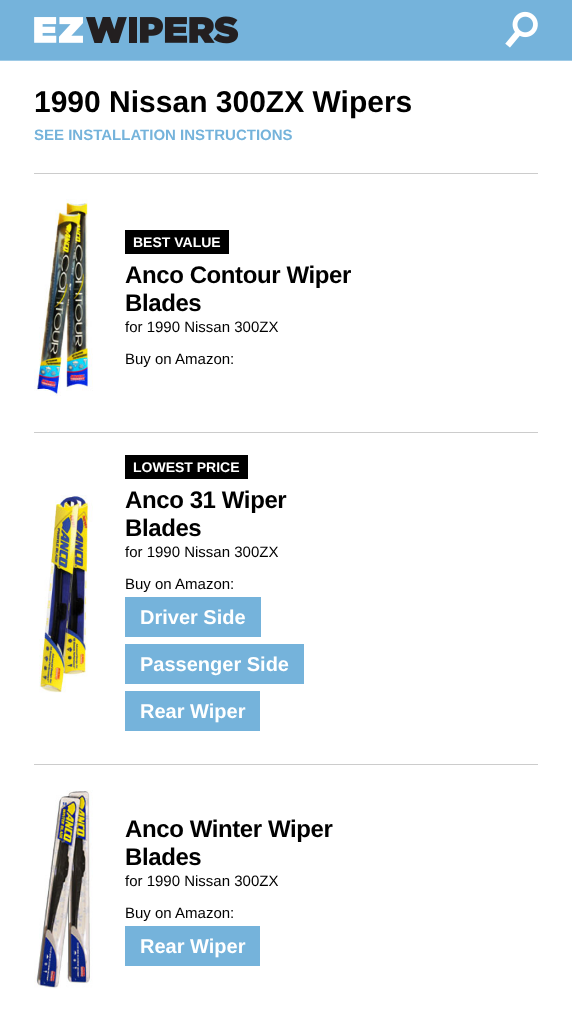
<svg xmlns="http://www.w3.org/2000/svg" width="572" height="1019">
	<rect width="100%" height="100%" fill="#FFFFFF" />
	<rect x="0" y="0" width="572" height="60" fill="#75B3DB" />
	<rect x="0" y="60" width="572" height="1" fill="#9ECAE6" />
	<image x="34" y="16" width="205" height="28" href="assets/img1.png" />
	<image x="505" y="11" width="33" height="37" href="assets/img2.png" />
	<text x="34" y="112" font-family="Liberation Sans" font-size="30" font-weight="700" fill="#000000">1990 Nissan 300ZX Wipers</text>
	<text x="34" y="140" font-family="Liberation Sans" font-size="15" font-weight="700" fill="#75B3DB">SEE INSTALLATION INSTRUCTIONS</text>
	<rect x="34" y="173" width="504" height="1" fill="#CCCCCC" />
	<image x="34" y="199" width="59" height="197" href="assets/img3.png" />
	<rect x="125" y="230" width="104" height="24" fill="#000000" />
	<text x="133" y="247" font-family="Liberation Sans" font-size="14" font-weight="700" fill="#FFFFFF">BEST VALUE</text>
	<g font-family="Liberation Sans" font-size="24" font-weight="700" letter-spacing="-0.4" fill="#000000">
		<text x="125" y="283">Anco Contour Wiper</text>
		<text x="125" y="311">Blades</text>
	</g>
	<g font-family="Liberation Sans" font-size="15" fill="#000000">
		<text x="125" y="332">for 1990 Nissan 300ZX</text>
		<text x="125" y="364">Buy on Amazon:</text>
	</g>
	<rect x="34" y="432" width="504" height="1" fill="#CCCCCC" />
	<image x="39" y="495" width="54" height="198" href="assets/img4.png" />
	<rect x="125" y="455" width="123" height="24" fill="#000000" />
	<text x="133" y="472" font-family="Liberation Sans" font-size="14" font-weight="700" fill="#FFFFFF">LOWEST PRICE</text>
	<g font-family="Liberation Sans" font-size="24" font-weight="700" letter-spacing="-0.4" fill="#000000">
		<text x="125" y="508">Anco 31 Wiper</text>
		<text x="125" y="536">Blades</text>
	</g>
	<g font-family="Liberation Sans" font-size="15" fill="#000000">
		<text x="125" y="557">for 1990 Nissan 300ZX</text>
		<text x="125" y="589">Buy on Amazon:</text>
	</g>
	<rect x="125" y="597" width="136" height="40" fill="#75B3DB" />
	<text x="140" y="624" font-family="Liberation Sans" font-size="20" font-weight="700" fill="#FFFFFF">Driver Side</text>
	<rect x="125" y="644" width="179" height="40" fill="#75B3DB" />
	<text x="140" y="671" font-family="Liberation Sans" font-size="20" font-weight="700" fill="#FFFFFF">Passenger Side</text>
	<rect x="125" y="691" width="135" height="40" fill="#75B3DB" />
	<text x="140" y="718" font-family="Liberation Sans" font-size="20" font-weight="700" fill="#FFFFFF">Rear Wiper</text>
	<rect x="34" y="764" width="504" height="1" fill="#CCCCCC" />
	<image x="34" y="790" width="59" height="199" href="assets/img5.png" />
	<g font-family="Liberation Sans" font-size="24" font-weight="700" letter-spacing="-0.4" fill="#000000">
		<text x="125" y="837">Anco Winter Wiper</text>
		<text x="125" y="865">Blades</text>
	</g>
	<g font-family="Liberation Sans" font-size="15" fill="#000000">
		<text x="125" y="886">for 1990 Nissan 300ZX</text>
		<text x="125" y="918">Buy on Amazon:</text>
	</g>
	<rect x="125" y="926" width="135" height="40" fill="#75B3DB" />
	<text x="140" y="953" font-family="Liberation Sans" font-size="20" font-weight="700" fill="#FFFFFF">Rear Wiper</text>
</svg>
